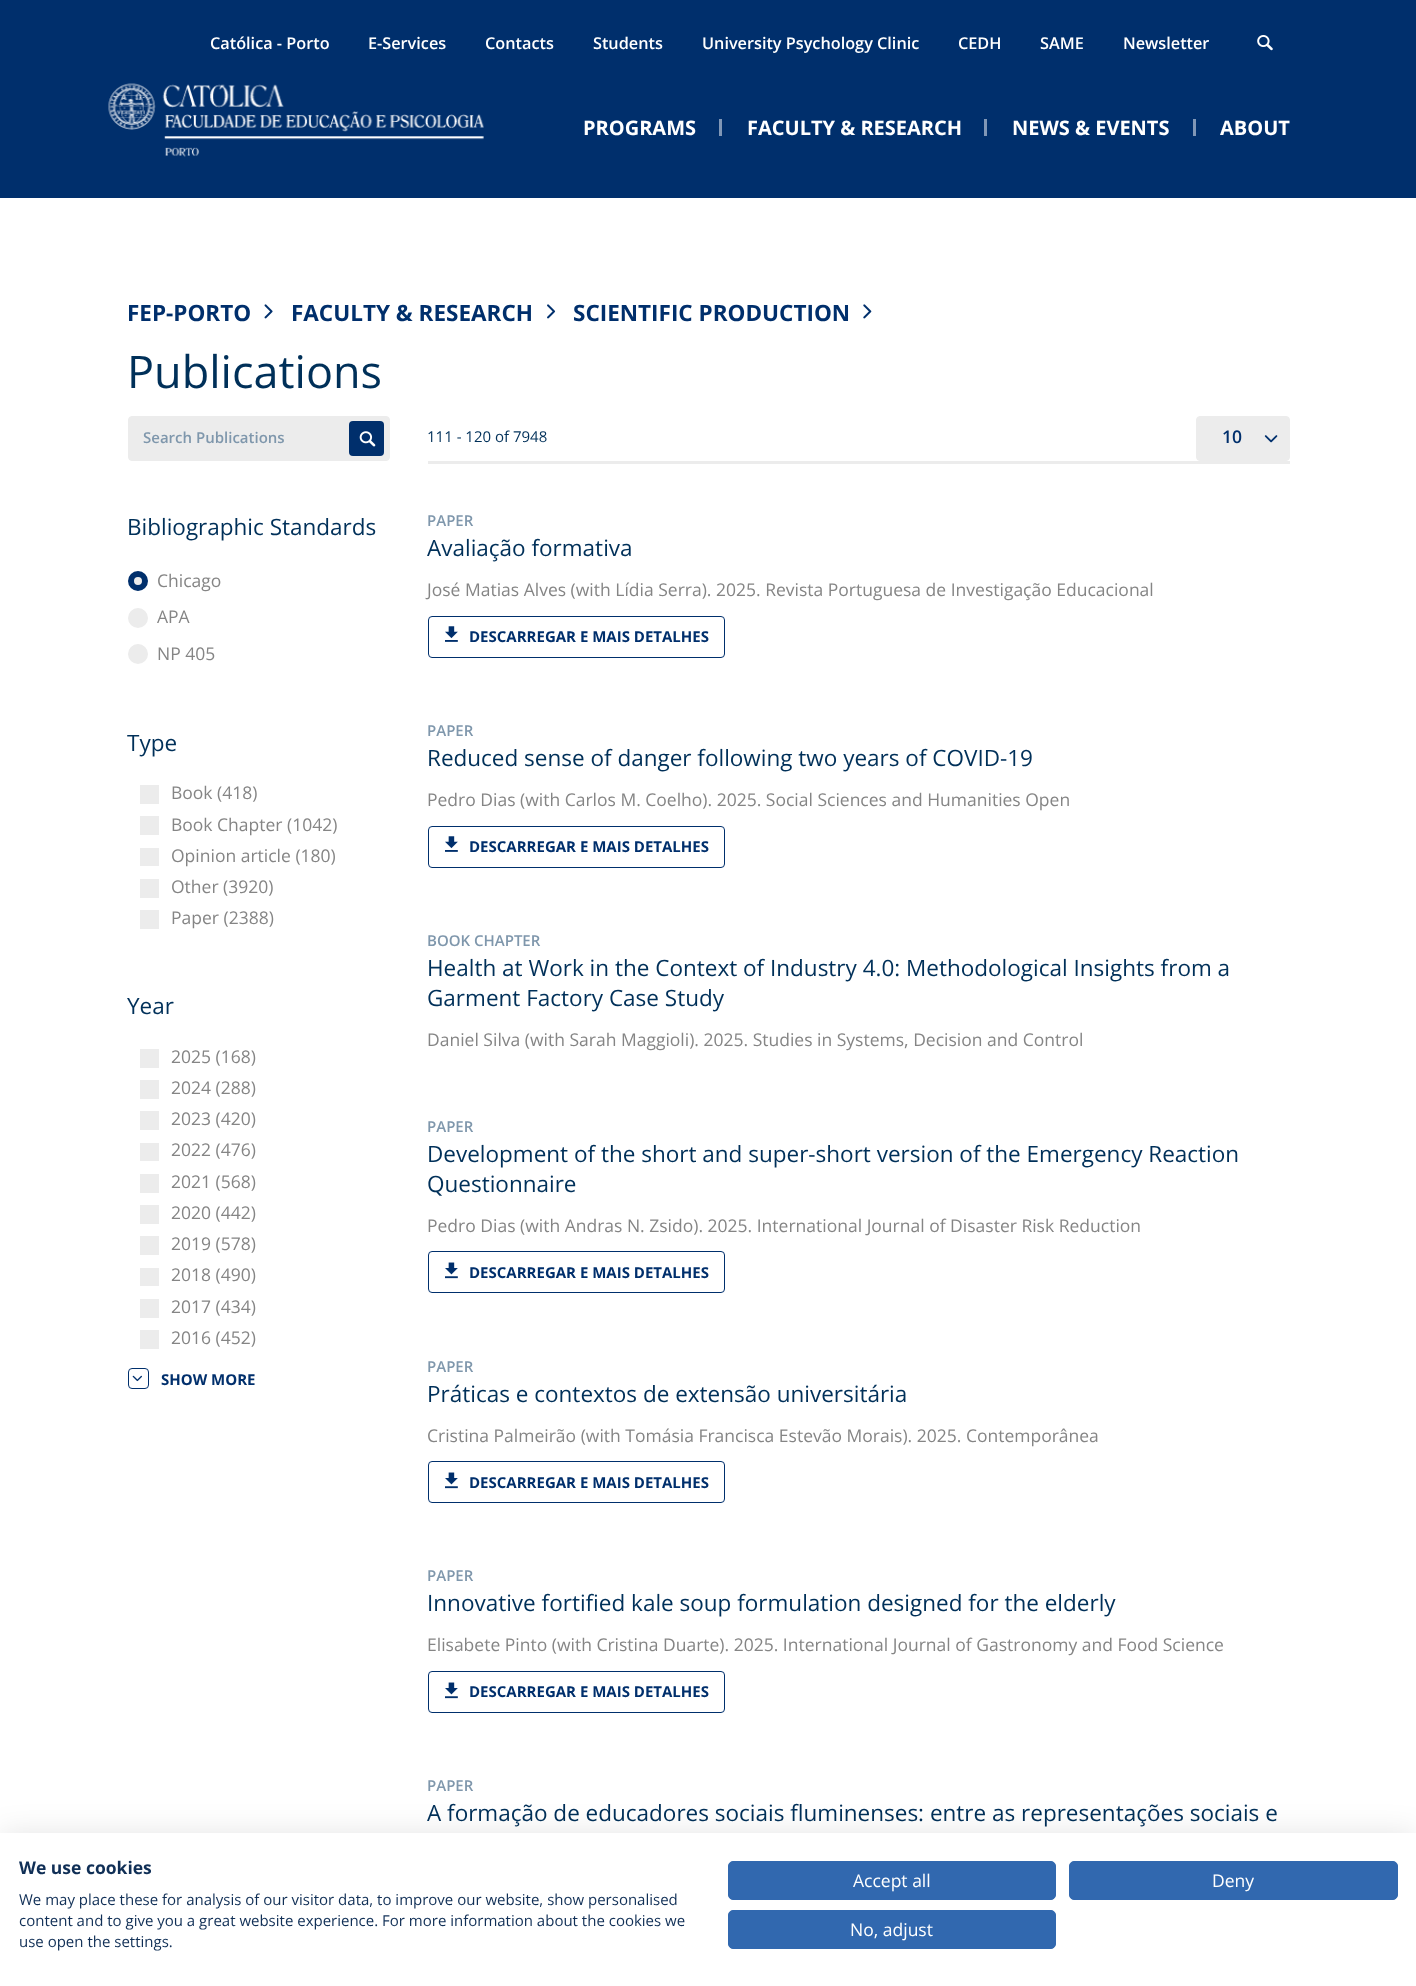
<svg xmlns="http://www.w3.org/2000/svg" width="1416" height="1986">
	<rect width="100%" height="100%" fill="#FFFFFF" />
	<rect x="0" y="0" width="1416" height="198" fill="#002F6C" />
	<g font-family="Open Sans" font-size="16.25" font-weight="600" fill="#FFFFFF">
		<text x="210" y="49">Católica - Porto</text>
		<text x="368" y="49">E-Services</text>
		<text x="485" y="49">Contacts</text>
		<text x="593" y="49">Students</text>
		<text x="702" y="49">University Psychology Clinic</text>
		<text x="958" y="49">CEDH</text>
		<text x="1040" y="49">SAME</text>
		<text x="1123" y="49">Newsletter</text>
	</g>
	<image x="1257" y="35" width="16" height="16" href="assets/img1.png" />
	<image x="108" y="83" width="376" height="74" href="assets/img2.png" />
	<text x="583" y="135" font-family="Open Sans" font-size="20" font-weight="700" fill="#FFFFFF">PROGRAMS</text>
	<rect x="719" y="119" width="3" height="17" fill="#8097B6" />
	<text x="747" y="135" font-family="Open Sans" font-size="20" font-weight="700" fill="#FFFFFF">FACULTY &amp; RESEARCH</text>
	<rect x="984" y="119" width="3" height="17" fill="#8097B6" />
	<text x="1012" y="135" font-family="Open Sans" font-size="20" font-weight="700" fill="#FFFFFF">NEWS &amp; EVENTS</text>
	<rect x="1193" y="119" width="3" height="17" fill="#8097B6" />
	<text x="1220" y="135" font-family="Open Sans" font-size="20" font-weight="700" fill="#FFFFFF">ABOUT</text>
	<text x="127" y="321" font-family="Open Sans" font-size="22.5" font-weight="700" fill="#002F6C">FEP-PORTO</text>
	<image x="264" y="304" width="9" height="15" href="assets/img3.png" />
	<text x="291" y="321" font-family="Open Sans" font-size="22.5" font-weight="700" fill="#002F6C">FACULTY &amp; RESEARCH</text>
	<image x="547" y="304" width="9" height="15" href="assets/img4.png" />
	<text x="573" y="321" font-family="Open Sans" font-size="22.5" font-weight="700" fill="#002F6C">SCIENTIFIC PRODUCTION</text>
	<image x="863" y="304" width="9" height="15" href="assets/img5.png" />
	<text x="127" y="388" font-family="Open Sans" font-size="45" fill="#003059">Publications</text>
	<rect x="128.5" y="416.5" width="261" height="44" rx="3.5" fill="#ECECEC" stroke="#ECECEC" />
	<text x="143" y="443" font-family="Open Sans" font-size="15" font-weight="600" fill="#7F97AC">Search Publications</text>
	<rect x="349" y="421" width="35" height="35" rx="4" fill="#002F6C" />
	<image x="359" y="431" width="17" height="16" href="assets/img6.png" />
	<text x="127" y="535" font-family="Open Sans" font-size="22.5" fill="#003059">Bibliographic Standards</text>
	<circle cx="138" cy="581" r="7" fill="#ECECEC" stroke="#002F6C" stroke-width="6" />
	<text x="157" y="587" font-family="Open Sans" font-size="17.5" fill="#858585">Chicago</text>
	<circle cx="138" cy="618" r="10" fill="#ECECEC" />
	<text x="157" y="623" font-family="Open Sans" font-size="17.5" fill="#858585">APA</text>
	<circle cx="138" cy="654" r="10" fill="#ECECEC" />
	<text x="157" y="660" font-family="Open Sans" font-size="17.5" fill="#858585">NP 405</text>
	<text x="127" y="751" font-family="Open Sans" font-size="22.5" fill="#003059">Type</text>
	<rect x="140" y="785" width="19" height="19" fill="#ECECEC" />
	<text x="171" y="799" font-family="Open Sans" font-size="17.5" fill="#858585">Book (418)</text>
	<rect x="140" y="816" width="19" height="19" fill="#ECECEC" />
	<text x="171" y="831" font-family="Open Sans" font-size="17.5" fill="#858585">Book Chapter (1042)</text>
	<rect x="140" y="848" width="19" height="18" fill="#ECECEC" />
	<text x="171" y="862" font-family="Open Sans" font-size="17.5" fill="#858585">Opinion article (180)</text>
	<rect x="140" y="879" width="19" height="19" fill="#ECECEC" />
	<text x="171" y="893" font-family="Open Sans" font-size="17.5" fill="#858585">Other (3920)</text>
	<rect x="140" y="910" width="19" height="19" fill="#ECECEC" />
	<text x="171" y="924" font-family="Open Sans" font-size="17.5" fill="#858585">Paper (2388)</text>
	<text x="127" y="1014" font-family="Open Sans" font-size="22.5" fill="#003059">Year</text>
	<rect x="140" y="1049" width="19" height="19" fill="#ECECEC" />
	<text x="171" y="1063" font-family="Open Sans" font-size="17.5" fill="#858585">2025 (168)</text>
	<rect x="140" y="1080" width="19" height="19" fill="#ECECEC" />
	<text x="171" y="1094" font-family="Open Sans" font-size="17.5" fill="#858585">2024 (288)</text>
	<rect x="140" y="1111" width="19" height="19" fill="#ECECEC" />
	<text x="171" y="1125" font-family="Open Sans" font-size="17.5" fill="#858585">2023 (420)</text>
	<rect x="140" y="1143" width="19" height="18" fill="#ECECEC" />
	<text x="171" y="1156" font-family="Open Sans" font-size="17.5" fill="#858585">2022 (476)</text>
	<rect x="140" y="1174" width="19" height="19" fill="#ECECEC" />
	<text x="171" y="1188" font-family="Open Sans" font-size="17.5" fill="#858585">2021 (568)</text>
	<rect x="140" y="1205" width="19" height="19" fill="#ECECEC" />
	<text x="171" y="1219" font-family="Open Sans" font-size="17.5" fill="#858585">2020 (442)</text>
	<rect x="140" y="1236" width="19" height="19" fill="#ECECEC" />
	<text x="171" y="1250" font-family="Open Sans" font-size="17.5" fill="#858585">2019 (578)</text>
	<rect x="140" y="1268" width="19" height="18" fill="#ECECEC" />
	<text x="171" y="1281" font-family="Open Sans" font-size="17.5" fill="#858585">2018 (490)</text>
	<rect x="140" y="1299" width="19" height="19" fill="#ECECEC" />
	<text x="171" y="1313" font-family="Open Sans" font-size="17.5" fill="#858585">2017 (434)</text>
	<rect x="140" y="1330" width="19" height="19" fill="#ECECEC" />
	<text x="171" y="1344" font-family="Open Sans" font-size="17.5" fill="#858585">2016 (452)</text>
	<rect x="128.5" y="1368.5" width="20" height="20" rx="3.5" fill="none" stroke="#002F6C" />
	<image x="132" y="1375" width="10" height="7" href="assets/img7.png" />
	<text x="161" y="1385" font-family="Open Sans" font-size="15" font-weight="700" fill="#002F6C">SHOW MORE</text>
	<text x="427" y="442" font-family="Open Sans" font-size="15" fill="#003059">111 - 120 of 7948</text>
	<text x="427" y="526" font-family="Open Sans" font-size="15" font-weight="600" fill="#7F97AC">PAPER</text>
	<text x="427" y="556" font-family="Open Sans" font-size="22.5" fill="#003059">Avaliação formativa</text>
	<text x="427" y="596" font-family="Open Sans" font-size="17.5" fill="#858585">José Matias Alves (with Lídia Serra). 2025. Revista Portuguesa de Investigação Educacional</text>
	<rect x="428.5" y="616.5" width="296" height="41" rx="3.5" fill="none" stroke="#002F6C" />
	<image x="445" y="626" width="13" height="16" href="assets/img8.png" />
	<text x="469" y="642" font-family="Open Sans" font-size="15" font-weight="700" fill="#002F6C">DESCARREGAR E MAIS DETALHES</text>
	<text x="427" y="736" font-family="Open Sans" font-size="15" font-weight="600" fill="#7F97AC">PAPER</text>
	<text x="427" y="766" font-family="Open Sans" font-size="22.5" fill="#003059">Reduced sense of danger following two years of COVID-19</text>
	<text x="427" y="806" font-family="Open Sans" font-size="17.5" fill="#858585">Pedro Dias (with Carlos M. Coelho). 2025. Social Sciences and Humanities Open</text>
	<rect x="428.5" y="826.5" width="296" height="41" rx="3.5" fill="none" stroke="#002F6C" />
	<image x="445" y="836" width="13" height="16" href="assets/img8.png" />
	<text x="469" y="852" font-family="Open Sans" font-size="15" font-weight="700" fill="#002F6C">DESCARREGAR E MAIS DETALHES</text>
	<text x="427" y="946" font-family="Open Sans" font-size="15" font-weight="600" fill="#7F97AC">BOOK CHAPTER</text>
	<g font-family="Open Sans" font-size="22.5" fill="#003059">
		<text x="427" y="976">Health at Work in the Context of Industry 4.0: Methodological Insights from a</text>
		<text x="427" y="1006">Garment Factory Case Study</text>
	</g>
	<text x="427" y="1046" font-family="Open Sans" font-size="17.5" fill="#858585">Daniel Silva (with Sarah Maggioli). 2025. Studies in Systems, Decision and Control</text>
	<text x="427" y="1132" font-family="Open Sans" font-size="15" font-weight="600" fill="#7F97AC">PAPER</text>
	<g font-family="Open Sans" font-size="22.5" fill="#003059">
		<text x="427" y="1162">Development of the short and super-short version of the Emergency Reaction</text>
		<text x="427" y="1192">Questionnaire</text>
	</g>
	<text x="427" y="1232" font-family="Open Sans" font-size="17.5" fill="#858585">Pedro Dias (with Andras N. Zsido). 2025. International Journal of Disaster Risk Reduction</text>
	<rect x="428.5" y="1251.5" width="296" height="41" rx="3.5" fill="none" stroke="#002F6C" />
	<image x="445" y="1262" width="13" height="17" href="assets/img9.png" />
	<text x="469" y="1278" font-family="Open Sans" font-size="15" font-weight="700" fill="#002F6C">DESCARREGAR E MAIS DETALHES</text>
	<text x="427" y="1372" font-family="Open Sans" font-size="15" font-weight="600" fill="#7F97AC">PAPER</text>
	<text x="427" y="1402" font-family="Open Sans" font-size="22.5" fill="#003059">Práticas e contextos de extensão universitária</text>
	<text x="427" y="1442" font-family="Open Sans" font-size="17.5" fill="#858585">Cristina Palmeirão (with Tomásia Francisca Estevão Morais). 2025. Contemporânea</text>
	<rect x="428.5" y="1461.5" width="296" height="41" rx="3.5" fill="none" stroke="#002F6C" />
	<image x="445" y="1472" width="13" height="17" href="assets/img9.png" />
	<text x="469" y="1488" font-family="Open Sans" font-size="15" font-weight="700" fill="#002F6C">DESCARREGAR E MAIS DETALHES</text>
	<text x="427" y="1581" font-family="Open Sans" font-size="15" font-weight="600" fill="#7F97AC">PAPER</text>
	<text x="427" y="1611" font-family="Open Sans" font-size="22.5" fill="#003059">Innovative fortified kale soup formulation designed for the elderly</text>
	<text x="427" y="1651" font-family="Open Sans" font-size="17.5" fill="#858585">Elisabete Pinto (with Cristina Duarte). 2025. International Journal of Gastronomy and Food Science</text>
	<rect x="428.5" y="1671.5" width="296" height="41" rx="3.5" fill="none" stroke="#002F6C" />
	<image x="445" y="1682" width="13" height="17" href="assets/img9.png" />
	<text x="469" y="1697" font-family="Open Sans" font-size="15" font-weight="700" fill="#002F6C">DESCARREGAR E MAIS DETALHES</text>
	<text x="427" y="1791" font-family="Open Sans" font-size="15" font-weight="600" fill="#7F97AC">PAPER</text>
	<text x="427" y="1821" font-family="Open Sans" font-size="22.5" fill="#003059">A formação de educadores sociais fluminenses: entre as representações sociais e</text>
	<rect x="428" y="461" width="862" height="3" fill="#ECECEC" />
	<rect x="1196.5" y="416.5" width="93" height="44" rx="3.5" fill="#ECECEC" stroke="#ECECEC" />
	<text x="1222" y="443" font-family="Open Sans" font-size="17.5" font-weight="600" fill="#002F6C">10</text>
	<image x="1264" y="435" width="14" height="8" href="assets/img10.png" />
	<rect x="0" y="1833" width="1416" height="153" fill="#000000" fill-opacity="0.1" filter="blur(15px)" />
	<rect x="0" y="1833" width="1416" height="153" fill="#FFFFFF" />
	<text x="19" y="1874" font-family="Open Sans" font-size="17.5" font-weight="700" fill="#102F56">We use cookies</text>
	<g font-family="Open Sans" font-size="15" fill="#102F56">
		<text x="19" y="1905">We may place these for analysis of our visitor data, to improve our website, show personalised</text>
		<text x="19" y="1926">content and to give you a great website experience. For more information about the cookies we</text>
		<text x="19" y="1947">use open the settings.</text>
	</g>
	<rect x="728.5" y="1861.5" width="327" height="38" rx="4.5" fill="#3168AF" stroke="#3168AF" />
	<text x="853" y="1887" font-family="Open Sans" font-size="17.5" fill="#FFFFFF">Accept all</text>
	<rect x="1069.5" y="1861.5" width="328" height="38" rx="4.5" fill="#3168AF" stroke="#3168AF" />
	<text x="1212" y="1887" font-family="Open Sans" font-size="17.5" fill="#FFFFFF">Deny</text>
	<rect x="728.5" y="1910.5" width="327" height="38" rx="4.5" fill="#3168AF" stroke="#3168AF" />
	<text x="850" y="1936" font-family="Open Sans" font-size="17.5" fill="#FFFFFF">No, adjust</text>
</svg>
